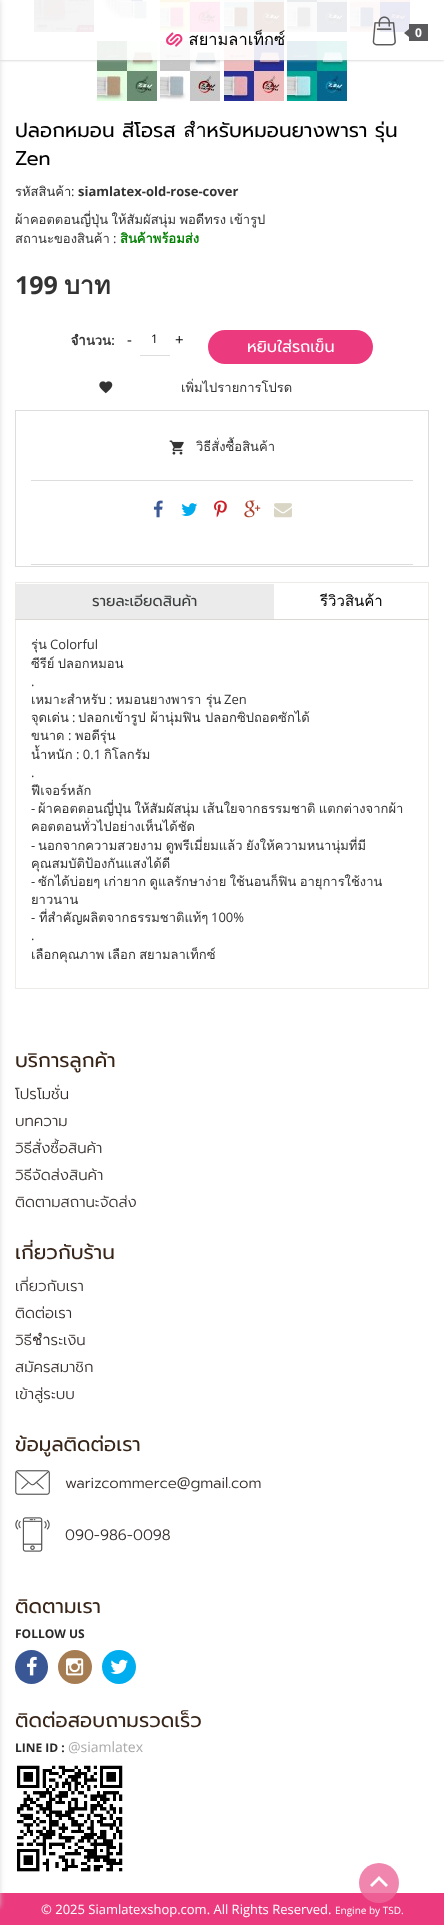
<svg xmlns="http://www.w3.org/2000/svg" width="444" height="1925">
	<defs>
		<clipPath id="clip1"><rect x="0" y="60" width="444" height="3" /></clipPath>
	</defs>
	<rect width="100%" height="100%" fill="#FFFFFF" />
	<rect x="34" y="-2" width="60" height="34" fill="#000000" fill-opacity="0.3" filter="blur(0.5px)" />
	<image x="34" y="0" width="60" height="32" href="assets/img3.png" />
	<image x="103" y="0" width="49" height="20" href="assets/img4.png" />
	<rect x="160" y="-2" width="60" height="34" fill="#000000" fill-opacity="0.3" filter="blur(0.5px)" />
	<image x="160" y="0" width="60" height="32" href="assets/img5.png" />
	<rect x="224" y="-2" width="60" height="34" fill="#000000" fill-opacity="0.3" filter="blur(0.5px)" />
	<image x="224" y="0" width="60" height="32" href="assets/img6.png" />
	<rect x="287" y="-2" width="60" height="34" fill="#000000" fill-opacity="0.3" filter="blur(0.5px)" />
	<image x="287" y="0" width="60" height="32" href="assets/img7.png" />
	<rect x="350" y="-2" width="60" height="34" fill="#000000" fill-opacity="0.3" filter="blur(0.5px)" />
	<image x="350" y="0" width="60" height="32" href="assets/img8.png" />
	<rect x="97" y="41" width="60" height="60" fill="#000000" fill-opacity="0.3" filter="blur(0.5px)" />
	<image x="97" y="41" width="60" height="60" href="assets/img9.png" />
	<rect x="160" y="41" width="60" height="60" fill="#000000" fill-opacity="0.3" filter="blur(0.5px)" />
	<image x="160" y="41" width="60" height="60" href="assets/img10.png" />
	<rect x="224" y="41" width="60" height="60" fill="#000000" fill-opacity="0.3" filter="blur(0.5px)" />
	<image x="224" y="41" width="60" height="60" href="assets/img11.png" />
	<rect x="287" y="41" width="60" height="60" fill="#000000" fill-opacity="0.3" filter="blur(0.5px)" />
	<image x="287" y="41" width="60" height="60" href="assets/img12.png" />
	<g clip-path="url(#clip1)">
		<rect x="0" y="0" width="444" height="60" fill="#BCBCBC" filter="blur(1.5px)" />
	</g>
	<rect x="33" y="0" width="378" height="60" fill="#FFFFFF" fill-opacity="0.9" />
	<rect x="0" y="1893" width="444" height="32" fill="#EB3B7E" />
	<rect x="-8" y="0" width="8" height="1907" fill="#CFCFCF" fill-opacity="0.8" filter="blur(2.5px)" />
	<image x="166" y="29" width="119" height="18" href="assets/img1.png" />
	<image x="372" y="16" width="24" height="30" href="assets/img2.png" />
	<path d="M409 29V37L404 33Z" fill="#5A5A5C" />
	<rect x="409" y="24" width="19" height="17" fill="#5A5A5C" />
	<text x="415" y="37" font-family="Open Sans" font-size="12" font-weight="700" fill="#FFFFFF">0</text>
	<g font-family="Prompt" font-size="20" fill="#000000">
		<text x="15" y="137">ปลอกหมอน สีโอรส สำหรับหมอนยางพารา รุ่น</text>
		<text x="15" y="165">Zen</text>
	</g>
	<text x="15" y="196" font-family="Loma" font-size="13" fill="#333333">รหัสสินค้า</text>
	<text x="71" y="196" font-family="Open Sans" font-size="13" fill="#333333">:</text>
	<text x="78" y="196" font-family="Open Sans" font-size="13" font-weight="700" fill="#333333">siamlatex-old-rose-cover</text>
	<g font-family="Loma" font-size="13" fill="#333333">
		<text x="15" y="224" word-spacing="-1">ผ้าคอตตอนญี่ปุ่น ให้สัมผัสนุ่ม พอดีทรง เข้ารูป</text>
		<text x="15" y="243">สถานะของสินค้า</text>
	</g>
	<text x="113" y="243" font-family="Open Sans" font-size="13" fill="#333333">:</text>
	<text x="120" y="243" font-family="Loma" font-size="13" font-weight="700" fill="#008000">สินค้าพร้อมส่ง</text>
	<text x="15" y="294" font-family="Open Sans" font-size="25" font-weight="700" fill="#333333">199</text>
	<text x="64" y="294" font-family="Loma" font-size="25" font-weight="700" fill="#333333">บาท</text>
	<text x="71" y="345" font-family="Loma" font-size="13" font-weight="700" fill="#333333">จำนวน:</text>
	<text x="127" y="345" font-family="Open Sans" font-size="15" fill="#000000">-</text>
	<rect x="140" y="355" width="30" height="1" fill="#DDDDDD" />
	<text x="151" y="343" font-family="Open Sans" font-size="12" fill="#000000">1</text>
	<text x="175" y="345" font-family="Open Sans" font-size="15" fill="#000000">+</text>
	<rect x="208" y="330" width="165" height="34" rx="17" fill="#EB3B7E" />
	<text x="247" y="352" font-family="Prompt" font-size="16" fill="#FFFFFF">หยิบใส่รถเข็น</text>
	<image x="99" y="381" width="14" height="13" href="assets/img13.png" />
	<text x="181" y="392" font-family="Loma" font-size="13" fill="#333333">เพิ่มไปรายการโปรด</text>
	<rect x="15.5" y="410.5" width="413" height="156" fill="none" stroke="#DDDDDD" />
	<rect x="31" y="480" width="382" height="1" fill="#DDDDDD" />
	<image x="169" y="440" width="15" height="15" href="assets/img14.png" />
	<text x="196" y="451" font-family="Loma" font-size="13" fill="#333333">วิธีสั่งซื้อสินค้า</text>
	<rect x="31" y="564" width="382" height="1" fill="#DDDDDD" />
	<image x="153" y="500" width="10" height="18" href="assets/img15.png" />
	<image x="181" y="503" width="17" height="13" href="assets/img16.png" />
	<image x="214" y="500" width="13" height="18" href="assets/img17.png" />
	<image x="244" y="500" width="17" height="18" href="assets/img18.png" />
	<image x="274" y="503" width="18" height="15" href="assets/img19.png" />
	<rect x="15.5" y="582.5" width="413" height="37" fill="none" stroke="#EDEAE8" />
	<rect x="16" y="584" width="258" height="35" fill="#EBEBEB" />
	<text x="92" y="606" font-family="Prompt" font-size="15" fill="#3B3D3E">รายละเอียดสินค้า</text>
	<text x="320" y="606" font-family="Loma" font-size="15" fill="#000000">รีวิวสินค้า</text>
	<rect x="15.5" y="619.5" width="413" height="369" fill="none" stroke="#4C2E18" stroke-opacity="0.1" />
	<text x="31" y="649" font-family="Loma" font-size="13" fill="#333333">รุ่น</text>
	<text x="50" y="649" font-family="Open Sans" font-size="13" fill="#333333">Colorful</text>
	<text x="31" y="668" word-spacing="-1" font-family="Loma" font-size="13" fill="#333333">ซีรีย์ ปลอกหมอน</text>
	<text x="31" y="686" font-family="Open Sans" font-size="13" fill="#333333">.</text>
	<text x="31" y="704" font-family="Loma" font-size="13" fill="#333333">เหมาะสำหรับ</text>
	<text x="109" y="704" font-family="Open Sans" font-size="13" fill="#333333">:</text>
	<text x="116" y="704" font-family="Loma" font-size="13" fill="#333333">หมอนยางพารา รุ่น</text>
	<text x="224" y="704" font-family="Open Sans" font-size="13" fill="#333333">Zen</text>
	<text x="31" y="722" font-family="Loma" font-size="13" fill="#333333">จุดเด่น</text>
	<text x="72" y="722" font-family="Open Sans" font-size="13" fill="#333333">:</text>
	<g font-family="Loma" font-size="13" fill="#333333">
		<text x="78" y="722">ปลอกเข้ารูป ผ้านุ่มฟิน ปลอกซิปถอดซักได้</text>
		<text x="31" y="740">ขนาด</text>
	</g>
	<text x="68" y="740" font-family="Open Sans" font-size="13" fill="#333333">:</text>
	<g font-family="Loma" font-size="13" fill="#333333">
		<text x="75" y="740">พอดีรุ่น</text>
		<text x="31" y="759">น้ำหนัก</text>
	</g>
	<text x="76" y="759" font-family="Open Sans" font-size="13" fill="#333333">: 0.1</text>
	<text x="104" y="759" font-family="Loma" font-size="13" fill="#333333">กิโลกรัม</text>
	<text x="31" y="777" font-family="Open Sans" font-size="13" fill="#333333">.</text>
	<text x="31" y="795" font-family="Loma" font-size="13" fill="#333333">ฟีเจอร์หลัก</text>
	<text x="31" y="813" font-family="Open Sans" font-size="13" fill="#333333">-</text>
	<g font-family="Loma" font-size="13" fill="#333333">
		<text x="38" y="813" word-spacing="-1">ผ้าคอตตอนญี่ปุ่น ให้สัมผัสนุ่ม เส้นใยจากธรรมชาติ แตกต่างจากผ้า</text>
		<text x="31" y="831">คอตตอนทั่วไปอย่างเห็นได้ชัด</text>
	</g>
	<text x="31" y="850" font-family="Open Sans" font-size="13" fill="#333333">-</text>
	<g font-family="Loma" font-size="13" fill="#333333">
		<text x="38" y="850" word-spacing="-1">นอกจากความสวยงาม ดูพรีเมี่ยมแล้ว ยังให้ความหนานุ่มที่มี</text>
		<text x="31" y="868">คุณสมบัติป้องกันแสงได้ดี</text>
	</g>
	<text x="31" y="886" font-family="Open Sans" font-size="13" fill="#333333">-</text>
	<g font-family="Loma" font-size="13" fill="#333333">
		<text x="38" y="886" word-spacing="-1">ซักได้บ่อยๆ เก่ายาก ดูแลรักษาง่าย ใช้นอนก็ฟิน อายุการใช้งาน</text>
		<text x="31" y="904">ยาวนาน</text>
	</g>
	<text x="31" y="922" font-family="Open Sans" font-size="13" fill="#333333">-</text>
	<text x="39" y="922" font-family="Loma" font-size="13" fill="#333333">ที่สำคัญผลิตจากธรรมชาติแท้ๆ</text>
	<g font-family="Open Sans" font-size="13" fill="#333333">
		<text x="211" y="922">100%</text>
		<text x="31" y="940">.</text>
	</g>
	<text x="31" y="959" word-spacing="-1" font-family="Loma" font-size="13" fill="#333333">เลือกคุณภาพ เลือก สยามลาเท็กซ์</text>
	<text x="15" y="1067" font-family="Prompt" font-size="20" fill="#372519">บริการลูกค้า</text>
	<g font-family="Prompt" font-size="15" font-weight="300" fill="#362F2D">
		<text x="15" y="1099">โปรโมชั่น</text>
		<text x="15" y="1126">บทความ</text>
		<text x="15" y="1153">วิธีสั่งซื้อสินค้า</text>
		<text x="15" y="1180">วิธีจัดส่งสินค้า</text>
		<text x="15" y="1207">ติดตามสถานะจัดส่ง</text>
	</g>
	<text x="15" y="1259" font-family="Prompt" font-size="20" fill="#372519">เกี่ยวกับร้าน</text>
	<g font-family="Prompt" font-size="15" font-weight="300" fill="#362F2D">
		<text x="15" y="1291">เกี่ยวกับเรา</text>
		<text x="15" y="1318">ติดต่อเรา</text>
		<text x="15" y="1345">วิธีชำระเงิน</text>
		<text x="15" y="1372">สมัครสมาชิก</text>
		<text x="15" y="1399">เข้าสู่ระบบ</text>
	</g>
	<text x="15" y="1451" font-family="Prompt" font-size="20" fill="#372519">ข้อมูลติดต่อเรา</text>
	<image x="15" y="1470" width="35" height="25" href="assets/img20.png" />
	<text x="65" y="1488" font-family="Prompt" font-size="15" font-weight="300" fill="#362F2D">warizcommerce@gmail.com</text>
	<image x="15" y="1517" width="35" height="35" href="assets/img21.png" />
	<text x="65" y="1540" font-family="Prompt" font-size="15" font-weight="300" fill="#362F2D">090-986-0098</text>
	<text x="15" y="1613" font-family="Prompt" font-size="20" fill="#372519">ติดตามเรา</text>
	<text x="15" y="1638" font-family="Open Sans" font-size="12" font-weight="700" fill="#292929">FOLLOW US</text>
	<rect x="15" y="1650" width="33" height="34" rx="16.5" fill="#395794" />
	<image x="27" y="1656" width="10" height="20" href="assets/img22.png" />
	<circle cx="75" cy="1667" r="17" fill="#A67C52" />
	<image x="66" y="1658" width="18" height="18" href="assets/img23.png" />
	<circle cx="119" cy="1667" r="17" fill="#00AEEF" />
	<image x="110" y="1659" width="18" height="15" href="assets/img24.png" />
	<text x="15" y="1727" font-family="Prompt" font-size="20" fill="#372519">ติดต่อสอบถามรวดเร็ว</text>
	<text x="15" y="1752" font-family="Open Sans" font-size="12" font-weight="700" fill="#292929">LINE ID :</text>
	<text x="68" y="1752" font-family="Open Sans" font-size="14" fill="#A9A9A9">@siamlatex</text>
	<image x="17" y="1765" width="106" height="107" href="assets/img25.png" />
	<text x="41" y="1914" font-family="Open Sans" font-size="13" fill="#FFFFFF">© 2025 Siamlatexshop.com. All Rights Reserved.</text>
	<text x="335" y="1914" font-family="Open Sans" font-size="10" fill="#FFFFFF">Engine by TSD.</text>
	<circle cx="379" cy="1883" r="20" fill="#EC689A" fill-opacity="0.8" />
	<path d="M379 1876L388 1885L386 1887L379 1880L372 1887L370 1885Z" fill="#FFFFFF" />
</svg>
